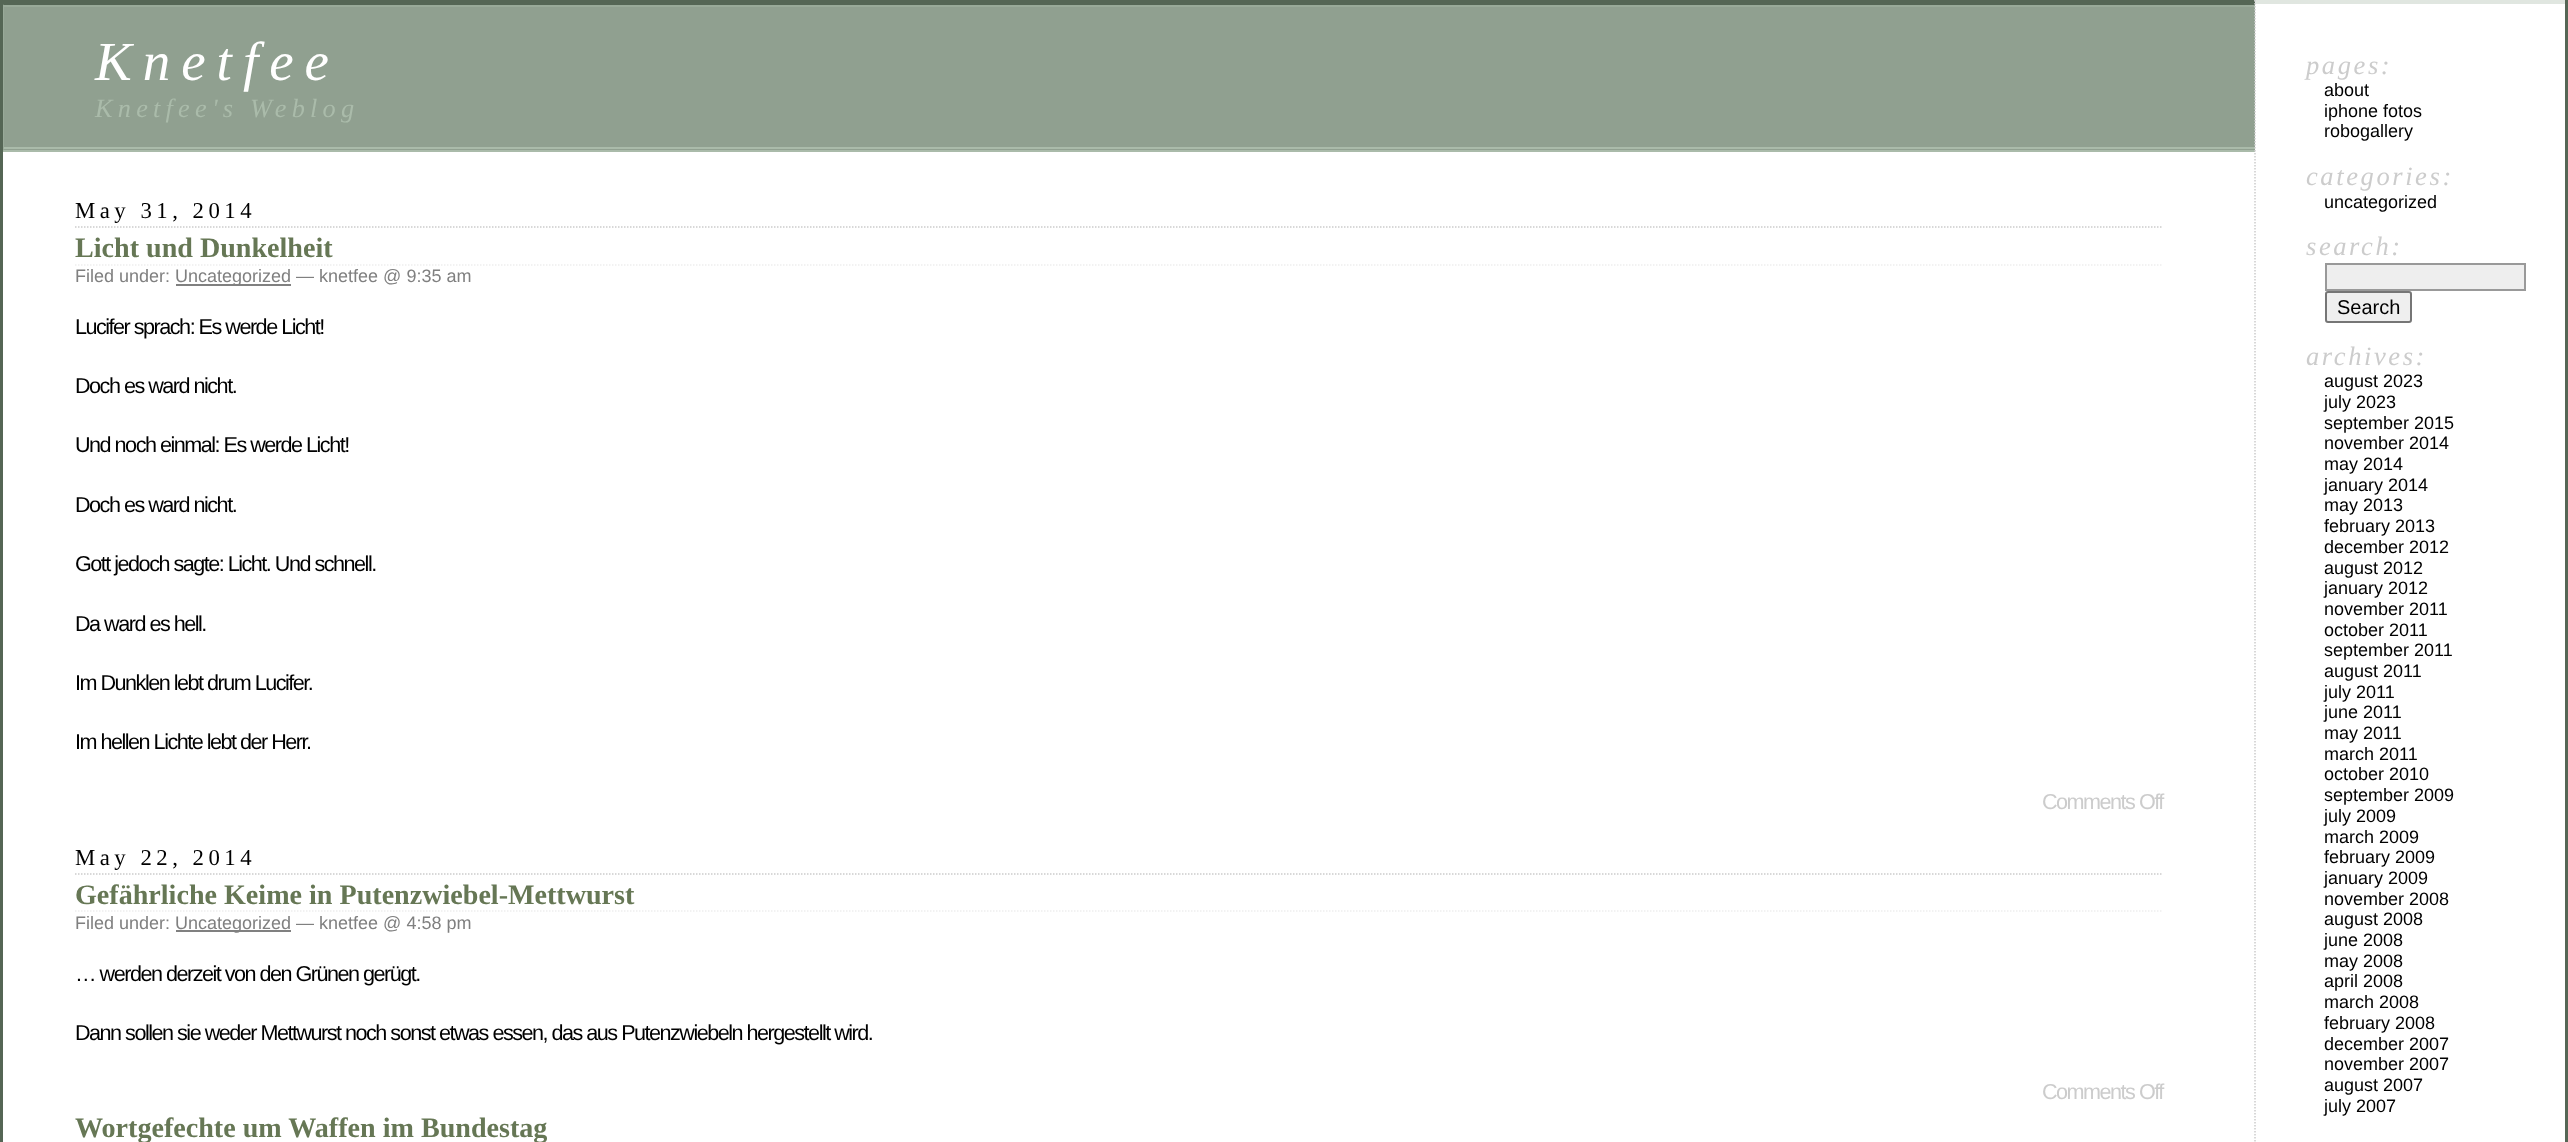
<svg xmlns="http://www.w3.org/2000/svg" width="2568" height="1142">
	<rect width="100%" height="100%" fill="#FFFFFF" />
	<rect x="0" y="0" width="2255" height="5" fill="#556655" />
	<rect x="2565" y="0" width="3" height="1142" fill="#556655" />
	<rect x="0" y="0" width="3" height="1142" fill="#556655" />
	<rect x="3" y="7" width="2252" height="143" fill="#90A090" />
	<rect x="3" y="5" width="2252" height="2" fill="#99AA99" />
	<rect x="3" y="147" width="2252" height="2" fill="#AABBAA" />
	<rect x="3" y="150" width="2252" height="2" fill="#AABBAA" />
	<path d="M3 152V4L4 6V147Z" fill="#99AA99" />
	<text x="95" y="80" font-family="Liberation Serif" font-size="55" font-style="italic" letter-spacing="11" fill="#FFFFFF">Knetfee</text>
	<text x="95" y="117" font-family="Liberation Serif" font-size="26.25" font-style="italic" letter-spacing="5.25" fill="#AABBAA">Knetfee's Weblog</text>
	<path d="M2254 0H2565V4H2256Z" fill="#E0E6E0" />
	<path d="M2255 0V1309.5" fill="none" stroke="#CCCCCC" stroke-width="1.5" stroke-dasharray="1.5 1.5" />
	<text x="2306" y="74" font-family="Liberation Serif" font-size="26.5" font-style="italic" letter-spacing="2.6" fill="#CCCCCC">pages:</text>
	<g font-family="Liberation Sans" font-size="18" fill="#000000">
		<text x="2324" y="96">about</text>
		<text x="2324" y="117">iphone fotos</text>
		<text x="2324" y="137">robogallery</text>
	</g>
	<text x="2306" y="185" font-family="Liberation Serif" font-size="26.5" font-style="italic" letter-spacing="2.6" fill="#CCCCCC">categories:</text>
	<text x="2324" y="208" font-family="Liberation Sans" font-size="18" fill="#000000">uncategorized</text>
	<text x="2306" y="255" font-family="Liberation Serif" font-size="26.5" font-style="italic" letter-spacing="2.6" fill="#CCCCCC">search:</text>
	<rect x="2326" y="264" width="199" height="26" fill="#EEEEEE" stroke="#999999" stroke-width="2" />
	<rect x="2326" y="292" width="85" height="30" rx="2" fill="#EFEFEF" stroke="#767676" stroke-width="2" />
	<text x="2337" y="314" font-family="Liberation Sans" font-size="20" fill="#000000">Search</text>
	<text x="2306" y="365" font-family="Liberation Serif" font-size="26.5" font-style="italic" letter-spacing="2.6" fill="#CCCCCC">archives:</text>
	<g font-family="Liberation Sans" font-size="18" fill="#000000">
		<text x="2324" y="387">august 2023</text>
		<text x="2324" y="408">july 2023</text>
		<text x="2324" y="429">september 2015</text>
		<text x="2324" y="449">november 2014</text>
		<text x="2324" y="470">may 2014</text>
		<text x="2324" y="491">january 2014</text>
		<text x="2324" y="511">may 2013</text>
		<text x="2324" y="532">february 2013</text>
		<text x="2324" y="553">december 2012</text>
		<text x="2324" y="574">august 2012</text>
		<text x="2324" y="594">january 2012</text>
		<text x="2324" y="615">november 2011</text>
		<text x="2324" y="636">october 2011</text>
		<text x="2324" y="656">september 2011</text>
		<text x="2324" y="677">august 2011</text>
		<text x="2324" y="698">july 2011</text>
		<text x="2324" y="718">june 2011</text>
		<text x="2324" y="739">may 2011</text>
		<text x="2324" y="760">march 2011</text>
		<text x="2324" y="780">october 2010</text>
		<text x="2324" y="801">september 2009</text>
		<text x="2324" y="822">july 2009</text>
		<text x="2324" y="843">march 2009</text>
		<text x="2324" y="863">february 2009</text>
		<text x="2324" y="884">january 2009</text>
		<text x="2324" y="905">november 2008</text>
		<text x="2324" y="925">august 2008</text>
		<text x="2324" y="946">june 2008</text>
		<text x="2324" y="967">may 2008</text>
		<text x="2324" y="987">april 2008</text>
		<text x="2324" y="1008">march 2008</text>
		<text x="2324" y="1029">february 2008</text>
		<text x="2324" y="1050">december 2007</text>
		<text x="2324" y="1070">november 2007</text>
		<text x="2324" y="1091">august 2007</text>
		<text x="2324" y="1112">july 2007</text>
	</g>
	<path d="M75 227H2163" fill="none" stroke="#CCCCCC" stroke-width="1.5" stroke-dasharray="1.5 1.5" />
	<text x="75" y="218" font-family="Liberation Serif" font-size="22.75" letter-spacing="4.5" fill="#000000">May 31, 2014</text>
	<path d="M75 265H2163" fill="none" stroke="#EEEEEE" stroke-width="1.5" stroke-dasharray="1.5 1.5" />
	<text x="75" y="257" font-family="Liberation Serif" font-size="28.1" font-weight="700" fill="#667755">Licht und Dunkelheit</text>
	<text x="75" y="282" font-family="Liberation Sans" font-size="18" fill="#808080">Filed under:</text>
	<rect x="176" y="284" width="115" height="2" fill="#808080" />
	<text x="175" y="282" font-family="Liberation Sans" font-size="18" fill="#808080">Uncategorized — knetfee @ 9:35 am</text>
	<g font-family="Liberation Sans" font-size="21.6" letter-spacing="-1.5" fill="#000000">
		<text x="75" y="334">Lucifer sprach: Es werde Licht!</text>
		<text x="75" y="393">Doch es ward nicht.</text>
		<text x="75" y="452">Und noch einmal: Es werde Licht!</text>
		<text x="75" y="512">Doch es ward nicht.</text>
		<text x="75" y="571">Gott jedoch sagte: Licht. Und schnell.</text>
		<text x="75" y="631">Da ward es hell.</text>
		<text x="75" y="690">Im Dunklen lebt drum Lucifer.</text>
		<text x="75" y="749">Im hellen Lichte lebt der Herr.</text>
	</g>
	<text x="2042" y="809" font-family="Liberation Sans" font-size="21.6" letter-spacing="-1.5" fill="#CCCCCC">Comments Off</text>
	<path d="M75 874H2163" fill="none" stroke="#CCCCCC" stroke-width="1.5" stroke-dasharray="1.5 1.5" />
	<text x="75" y="865" font-family="Liberation Serif" font-size="22.75" letter-spacing="4.5" fill="#000000">May 22, 2014</text>
	<path d="M75 911H2163" fill="none" stroke="#EEEEEE" stroke-width="1.5" stroke-dasharray="1.5 1.5" />
	<text x="75" y="904" font-family="Liberation Serif" font-size="28.1" font-weight="700" fill="#667755">Gefährliche Keime in Putenzwiebel-Mettwurst</text>
	<text x="75" y="929" font-family="Liberation Sans" font-size="18" fill="#808080">Filed under:</text>
	<rect x="176" y="930" width="115" height="2" fill="#808080" />
	<text x="175" y="929" font-family="Liberation Sans" font-size="18" fill="#808080">Uncategorized — knetfee @ 4:58 pm</text>
	<g font-family="Liberation Sans" font-size="21.6" letter-spacing="-1.5" fill="#000000">
		<text x="75" y="981">… werden derzeit von den Grünen gerügt.</text>
		<text x="75" y="1040">Dann sollen sie weder Mettwurst noch sonst etwas essen, das aus Putenzwiebeln hergestellt wird.</text>
	</g>
	<text x="2042" y="1099" font-family="Liberation Sans" font-size="21.6" letter-spacing="-1.5" fill="#CCCCCC">Comments Off</text>
	<text x="75" y="1137" font-family="Liberation Serif" font-size="28.1" font-weight="700" fill="#667755">Wortgefechte um Waffen im Bundestag</text>
</svg>
